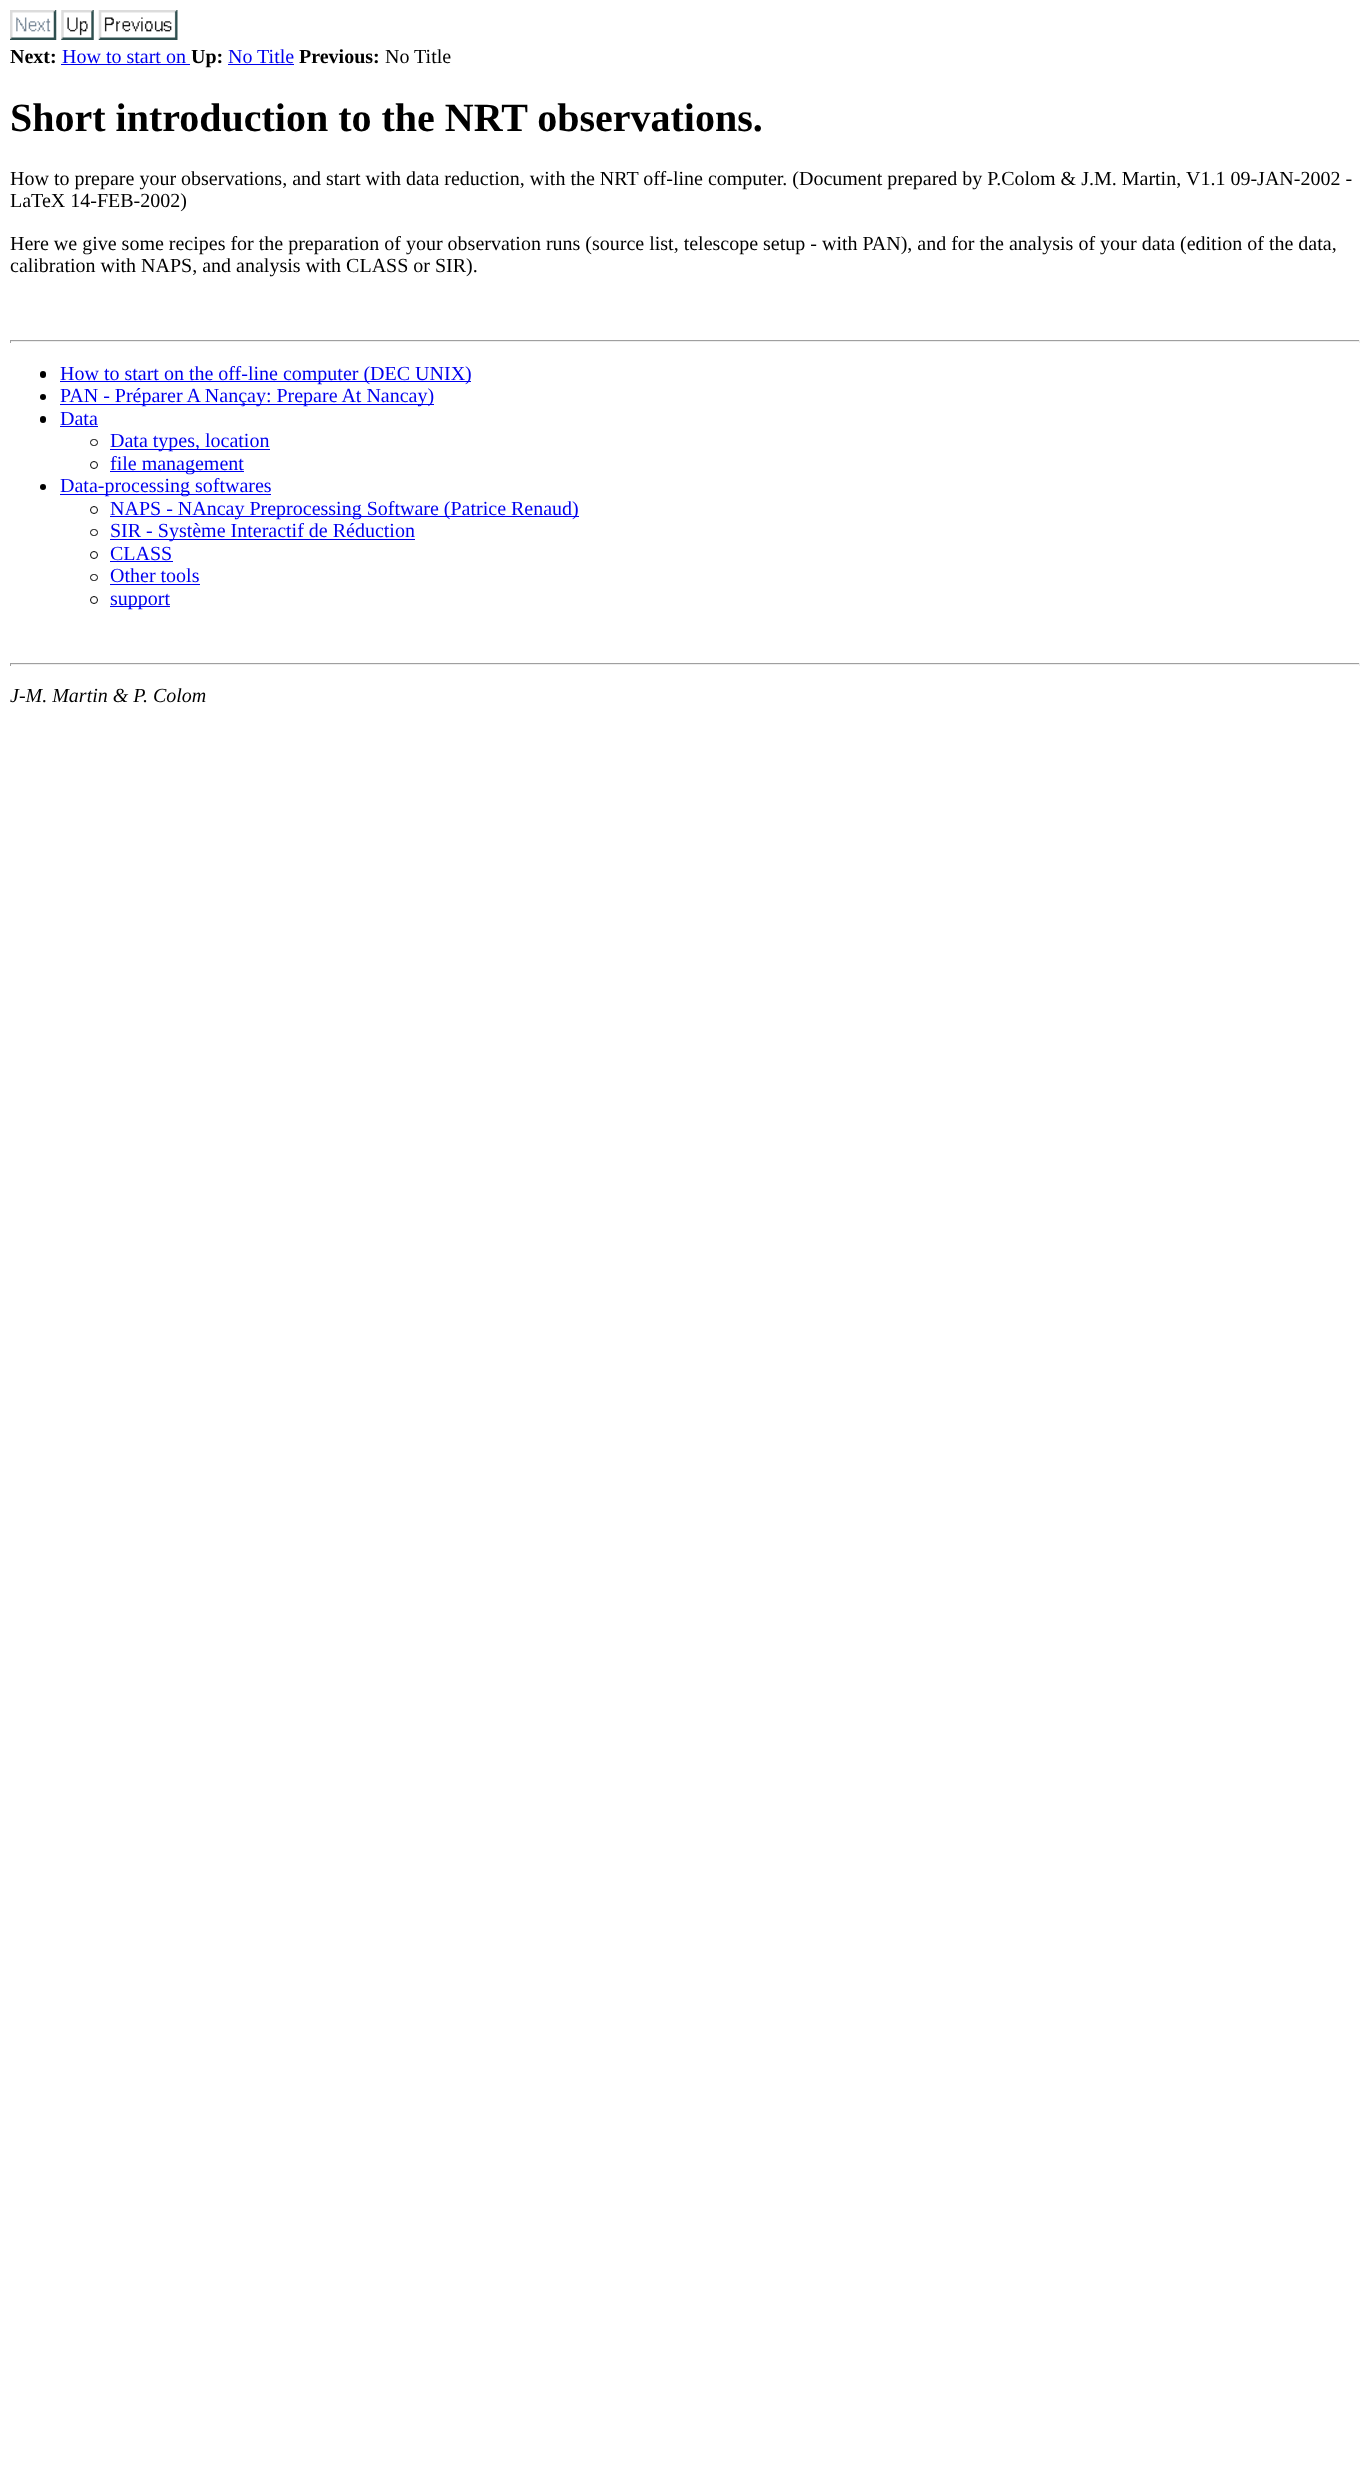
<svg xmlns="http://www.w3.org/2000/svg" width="1370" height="2470">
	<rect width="100%" height="100%" fill="#FFFFFF" />
	<image x="10" y="10" width="47" height="30" href="assets/img1.png" />
	<image x="61" y="10" width="33" height="30" href="assets/img2.png" />
	<image x="98" y="10" width="80" height="30" href="assets/img3.png" />
	<text x="10" y="63" font-family="Liberation Serif" font-size="20" font-weight="700" fill="#000000">Next:</text>
	<text x="62" y="63" font-family="Liberation Serif" font-size="20" fill="#0000EE">How to start on</text>
	<rect x="61" y="64" width="129" height="1" fill="#0000EE" />
	<text x="191" y="63" font-family="Liberation Serif" font-size="20" font-weight="700" fill="#000000">Up:</text>
	<text x="228" y="63" font-family="Liberation Serif" font-size="20" fill="#0000EE">No Title</text>
	<rect x="228" y="64" width="66" height="1" fill="#0000EE" />
	<text x="299" y="63" font-family="Liberation Serif" font-size="20" font-weight="700" fill="#000000">Previous:</text>
	<text x="385" y="63" font-family="Liberation Serif" font-size="20" fill="#000000">No Title</text>
	<text x="10" y="131" font-family="Liberation Serif" font-size="40" font-weight="700" fill="#000000">Short introduction to the NRT observations.</text>
	<g font-family="Liberation Serif" font-size="20" fill="#000000">
		<text x="10" y="185">How to prepare your observations, and start with data reduction, with the NRT off-line computer. (Document prepared by P.Colom &amp; J.M. Martin,</text>
		<text x="1186" y="185">V1.1 09-JAN-2002 -</text>
		<text x="10" y="207">LaTeX 14-FEB-2002)</text>
		<text x="10" y="250">Here we give some recipes for the preparation of your observation runs (source list, telescope setup - with PAN), and for the analysis of your data (edition of the data,</text>
		<text x="10" y="272">calibration with NAPS, and analysis with CLASS or SIR).</text>
	</g>
	<rect x="10" y="340" width="1350" height="1" fill="#9F9F9F" />
	<rect x="1359" y="340" width="1" height="3" fill="#EEEEEE" />
	<rect x="10" y="341" width="1350" height="1" fill="#EEEEEE" />
	<rect x="10" y="340" width="1" height="3" fill="#9F9F9F" />
	<rect x="40" y="371" width="6" height="7" rx="3" fill="#000000" />
	<rect x="60" y="381" width="411" height="1" fill="#0000EE" />
	<text x="60" y="380" font-family="Liberation Serif" font-size="20" fill="#0000EE">How to start on the off-line computer (DEC UNIX)</text>
	<circle cx="43" cy="397" r="3" fill="#000000" />
	<rect x="60" y="404" width="374" height="1" fill="#0000EE" />
	<text x="60" y="402" font-family="Liberation Serif" font-size="20" fill="#0000EE">PAN - Préparer A Nançay: Prepare At Nancay)</text>
	<rect x="40" y="416" width="6" height="7" rx="3" fill="#000000" />
	<text x="60" y="425" font-family="Liberation Serif" font-size="20" fill="#0000EE">Data</text>
	<rect x="60" y="426" width="38" height="1" fill="#0000EE" />
	<rect x="90.5" y="439.5" width="7" height="6" rx="3" fill="none" stroke="#000000" />
	<rect x="110" y="449" width="160" height="1" fill="#0000EE" />
	<text x="110" y="447" font-family="Liberation Serif" font-size="20" fill="#0000EE">Data types, location</text>
	<circle cx="94" cy="465" r="3.5" fill="none" stroke="#000000" />
	<rect x="110" y="471" width="134" height="1" fill="#0000EE" />
	<text x="110" y="470" font-family="Liberation Serif" font-size="20" fill="#0000EE">file management</text>
	<circle cx="43" cy="487" r="3" fill="#000000" />
	<rect x="60" y="494" width="211" height="1" fill="#0000EE" />
	<text x="60" y="492" font-family="Liberation Serif" font-size="20" fill="#0000EE">Data-processing softwares</text>
	<circle cx="94" cy="510" r="3.5" fill="none" stroke="#000000" />
	<rect x="110" y="516" width="469" height="1" fill="#0000EE" />
	<text x="110" y="515" font-family="Liberation Serif" font-size="20" fill="#0000EE">NAPS - NAncay Preprocessing Software (Patrice Renaud)</text>
	<rect x="90.5" y="529.5" width="7" height="6" rx="3" fill="none" stroke="#000000" />
	<rect x="110" y="539" width="305" height="1" fill="#0000EE" />
	<text x="110" y="537" font-family="Liberation Serif" font-size="20" fill="#0000EE">SIR - Système Interactif de Réduction</text>
	<circle cx="94" cy="555" r="3.5" fill="none" stroke="#000000" />
	<text x="110" y="560" font-family="Liberation Serif" font-size="20" fill="#0000EE">CLASS</text>
	<rect x="110" y="561" width="63" height="1" fill="#0000EE" />
	<rect x="90.5" y="574.5" width="7" height="6" rx="3" fill="none" stroke="#000000" />
	<text x="110" y="582" font-family="Liberation Serif" font-size="20" fill="#0000EE">Other tools</text>
	<rect x="110" y="584" width="90" height="1" fill="#0000EE" />
	<circle cx="94" cy="600" r="3.5" fill="none" stroke="#000000" />
	<rect x="110" y="606" width="60" height="1" fill="#0000EE" />
	<text x="110" y="605" font-family="Liberation Serif" font-size="20" fill="#0000EE">support</text>
	<rect x="10" y="663" width="1350" height="1" fill="#9F9F9F" />
	<rect x="1359" y="663" width="1" height="3" fill="#EEEEEE" />
	<rect x="10" y="664" width="1350" height="1" fill="#EEEEEE" />
	<rect x="10" y="663" width="1" height="3" fill="#9F9F9F" />
	<text x="10" y="702" font-family="Liberation Serif" font-size="20" font-style="italic" fill="#000000">J-M. Martin &amp; P. Colom</text>
</svg>
